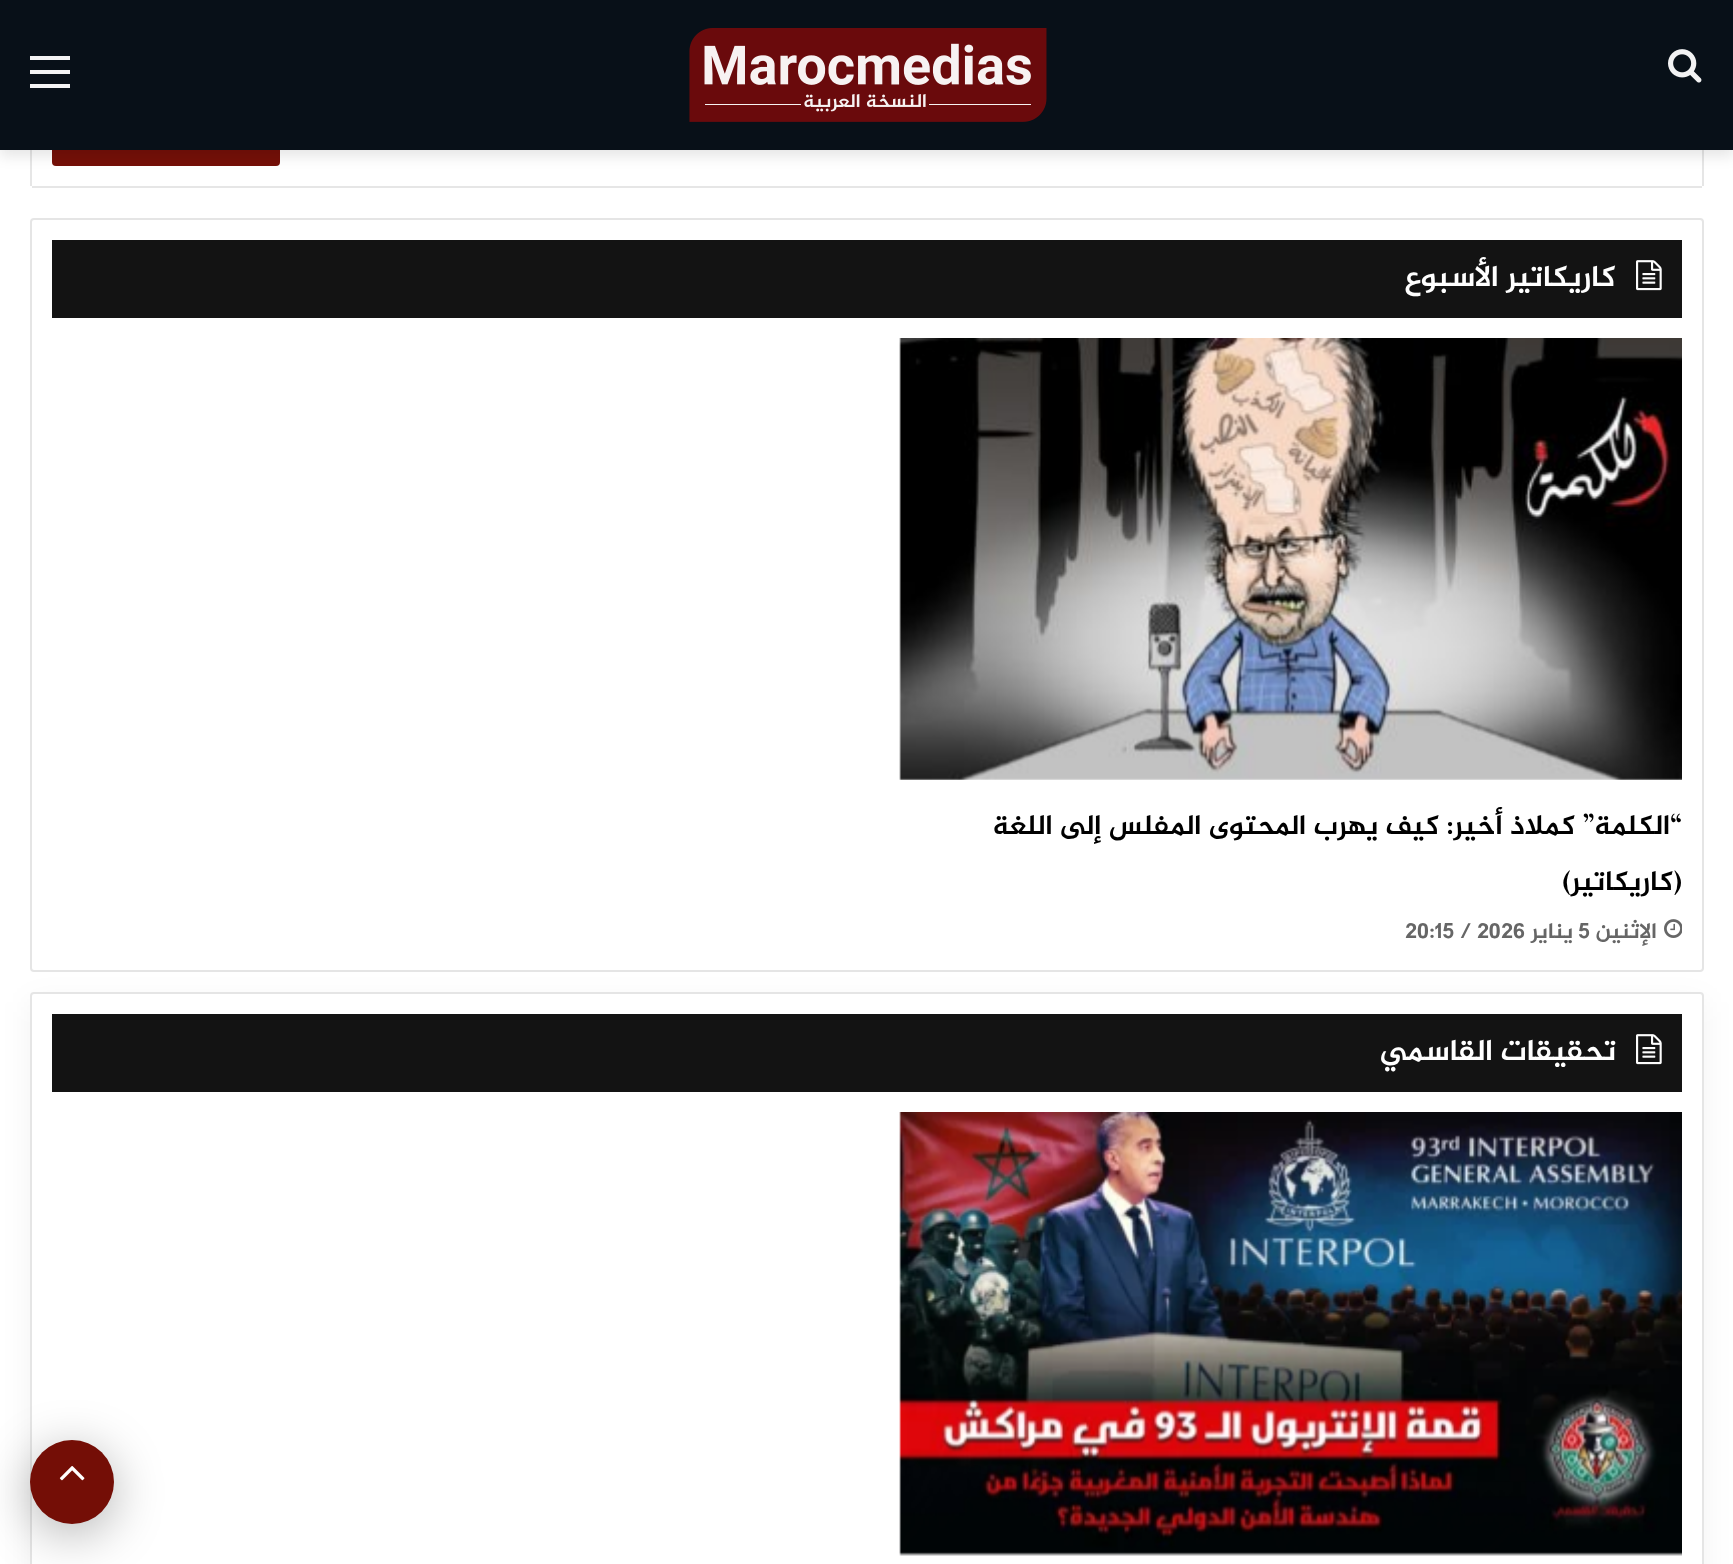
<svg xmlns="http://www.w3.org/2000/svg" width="1733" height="1564">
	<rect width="100%" height="100%" fill="#FFFFFF" />
	<rect x="1702" y="150" width="2" height="36" fill="#E6E6E6" />
	<rect x="30" y="150" width="2" height="36" fill="#E6E6E6" />
	<rect x="52" y="84" width="228" height="82" rx="4" fill="#751008" />
	<rect x="0" y="6" width="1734" height="150" fill="#000000" fill-opacity="0.1" filter="blur(7px)" />
	<rect x="0" y="0" width="1733" height="150" fill="#081018" />
	<image x="1668" y="49" width="34" height="34" href="assets/img1.png" />
	<image x="689" y="28" width="358" height="94" href="assets/img2.png" />
	<rect x="30" y="70" width="40" height="4" fill="#F3F3F3" />
	<rect x="30" y="56" width="40" height="4" fill="#F3F3F3" />
	<rect x="30" y="84" width="40" height="4" fill="#F3F3F3" />
	<rect x="32" y="186" width="1670" height="2" fill="#E6E6E6" />
	<rect x="31" y="219" width="1672" height="752" rx="3" fill="none" stroke="#E5E5E5" stroke-width="2" />
	<rect x="52" y="240" width="1630" height="78" fill="#131313" />
	<image x="1636" y="260" width="26" height="31" href="assets/img3.png" />
	<text x="1616" y="286" font-family="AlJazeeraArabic" font-size="30" font-weight="700" direction="rtl" fill="#FFFFFF">كاريكاتير الأسبوع</text>
	<image x="899" y="338" width="783" height="442" href="assets/img4.png" />
	<g font-family="AlJazeeraArabic" font-size="28" font-weight="700" direction="rtl" fill="#000000">
		<text x="1682" y="834">“الكلمة” كملاذ أخير: كيف يهرب المحتوى المفلس إلى اللغة</text>
		<text x="1682" y="890">(كاريكاتير)</text>
	</g>
	<image x="1664" y="919" width="18" height="19" href="assets/img5.png" />
	<text x="1657" y="938" font-family="AlJazeeraArabic" font-size="22" font-weight="700" direction="rtl" fill="#666666">الإثنين</text>
	<text x="1578" y="938" font-family="AlJazeeraArabic" font-size="22" font-weight="700" fill="#666666">5</text>
	<text x="1573" y="938" font-family="AlJazeeraArabic" font-size="22" font-weight="700" direction="rtl" fill="#666666">يناير</text>
	<text x="1405" y="938" font-family="AlJazeeraArabic" font-size="22" font-weight="700" fill="#666666">20:15 / 2026</text>
	<rect x="30" y="1002" width="1674" height="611" rx="4" fill="#000000" fill-opacity="0.05" filter="blur(15px)" />
	<rect x="31" y="993" width="1672" height="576" rx="3" fill="#FFFFFF" stroke="#E5E5E5" stroke-width="2" />
	<rect x="52" y="1014" width="1630" height="78" fill="#131313" />
	<image x="1636" y="1034" width="26" height="31" href="assets/img3.png" />
	<text x="1616" y="1060" font-family="AlJazeeraArabic" font-size="30" font-weight="700" direction="rtl" fill="#FFFFFF">تحقيقات القاسمي</text>
	<image x="899" y="1112" width="783" height="444" href="assets/img6.png" />
	<rect x="30" y="1450" width="84" height="84" rx="42" fill="#000000" fill-opacity="0.3" filter="blur(25px)" />
	<circle cx="72" cy="1482" r="42" fill="#740E06" />
	<image x="59" y="1466" width="26" height="15" href="assets/img7.png" />
</svg>
